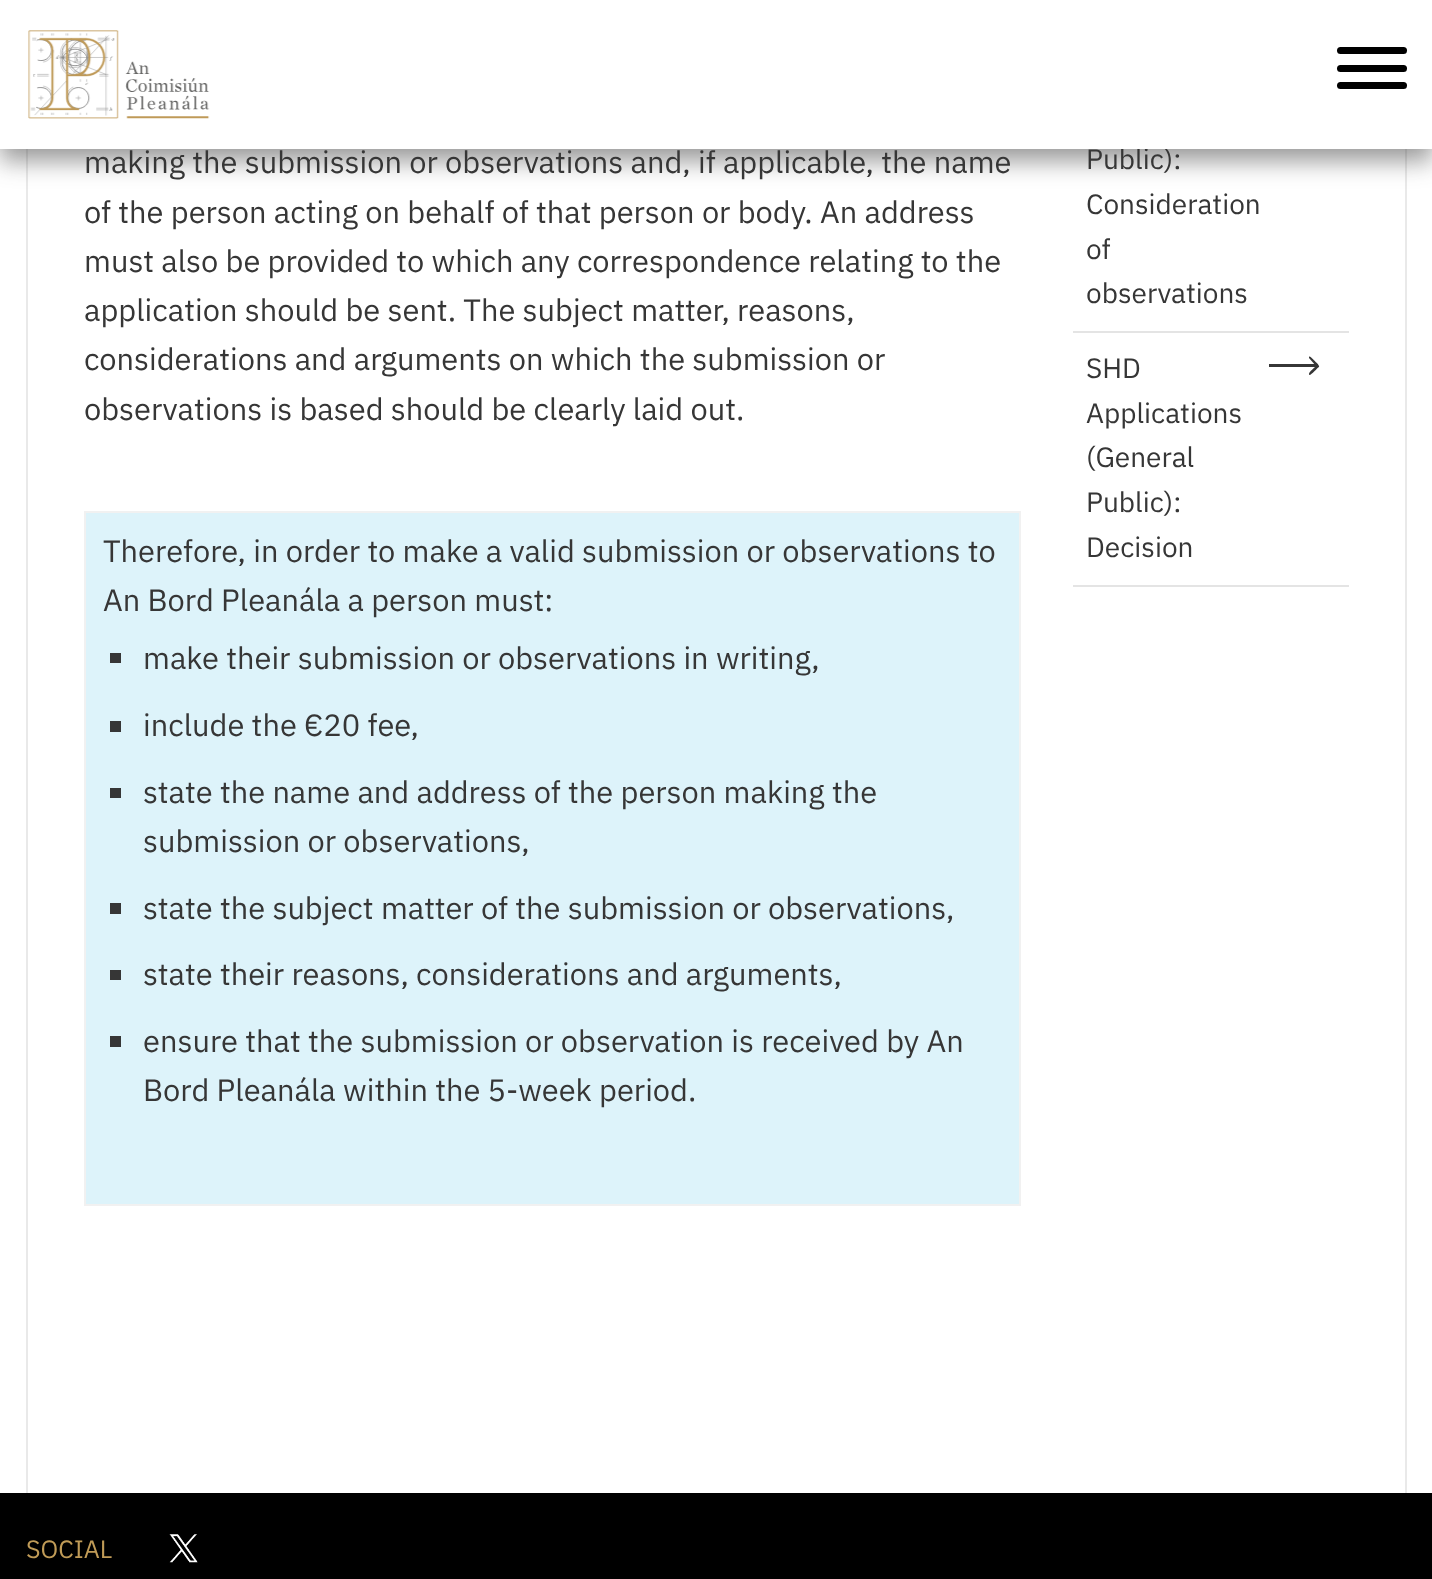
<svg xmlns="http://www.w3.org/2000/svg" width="1432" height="1579">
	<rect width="100%" height="100%" fill="#FFFFFF" />
	<rect x="1405" y="149" width="2" height="1344" fill="#E9E9E9" />
	<rect x="26" y="149" width="2" height="1344" fill="#E9E9E9" />
	<rect x="0" y="12" width="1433" height="149" fill="#323232" fill-opacity="0.5" filter="blur(12px)" />
	<text x="1086" y="169" font-family="IBM Plex Sans" font-size="28" fill="#363636">Public):</text>
	<rect x="0" y="0" width="1432" height="149" fill="#FFFFFF" />
	<image x="28" y="30" width="182" height="89" href="assets/img1.png" />
	<rect x="1337" y="47" width="70" height="7" rx="3.5" fill="#000000" />
	<rect x="1337" y="65" width="70" height="7" rx="3.5" fill="#000000" />
	<rect x="1337" y="82" width="70" height="7" rx="3.5" fill="#000000" />
	<g font-family="IBM Plex Sans" font-size="30.8" fill="#363636">
		<text x="84" y="173">making the submission or observations and, if applicable, the name</text>
		<text x="84" y="223">of the person acting on behalf of that person or body. An address</text>
		<text x="84" y="272">must also be provided to which any correspondence relating to the</text>
		<text x="84" y="321">application should be sent. The subject matter, reasons,</text>
		<text x="84" y="370">considerations and arguments on which the submission or</text>
		<text x="84" y="420">observations is based should be clearly laid out.</text>
	</g>
	<rect x="84" y="511" width="936" height="2" fill="#F1F1F1" />
	<rect x="1019" y="511" width="2" height="695" fill="#F1F1F1" />
	<rect x="84" y="1204" width="936" height="2" fill="#F1F1F1" />
	<rect x="84" y="511" width="2" height="695" fill="#F1F1F1" />
	<rect x="86" y="513" width="933" height="691" fill="#DDF3FA" />
	<g font-family="IBM Plex Sans" font-size="30.8" fill="#363636">
		<text x="103" y="562">Therefore, in order to make a valid submission or observations to</text>
		<text x="103" y="611">An Bord Pleanála a person must:</text>
	</g>
	<rect x="110" y="653" width="11" height="10" fill="#363636" />
	<text x="143" y="669" font-family="IBM Plex Sans" font-size="30.8" fill="#363636">make their submission or observations in writing,</text>
	<rect x="110" y="721" width="11" height="11" fill="#363636" />
	<text x="143" y="736" font-family="IBM Plex Sans" font-size="30.8" fill="#363636">include the €20 fee,</text>
	<rect x="110" y="788" width="11" height="10" fill="#363636" />
	<g font-family="IBM Plex Sans" font-size="30.8" fill="#363636">
		<text x="143" y="803">state the name and address of the person making the</text>
		<text x="143" y="852">submission or observations,</text>
	</g>
	<rect x="110" y="903" width="11" height="11" fill="#363636" />
	<text x="143" y="919" font-family="IBM Plex Sans" font-size="30.8" fill="#363636">state the subject matter of the submission or observations,</text>
	<rect x="110" y="970" width="11" height="10" fill="#363636" />
	<text x="143" y="985" font-family="IBM Plex Sans" font-size="30.8" fill="#363636">state their reasons, considerations and arguments,</text>
	<rect x="110" y="1036" width="11" height="11" fill="#363636" />
	<g font-family="IBM Plex Sans" font-size="30.8" fill="#363636">
		<text x="143" y="1052">ensure that the submission or observation is received by An</text>
		<text x="143" y="1101">Bord Pleanála within the 5-week period.</text>
	</g>
	<rect x="1073" y="331" width="276" height="2" fill="#E4E4E4" />
	<g font-family="IBM Plex Sans" font-size="28" fill="#363636">
		<text x="1086" y="214">Consideration</text>
		<text x="1086" y="259">of</text>
		<text x="1086" y="303">observations</text>
	</g>
	<rect x="1073" y="585" width="276" height="2" fill="#E4E4E4" />
	<text x="1086" y="378" font-family="IBM Plex Sans" font-size="28" fill="#363636">SHD</text>
	<path d="M1319 367C1320 365 1315 362 1315 361C1314 361 1310 355 1309 357V358L1316 366C1315 367 1309 372 1309 374C1309 378 1317 368 1319 367ZM1269 367H1318V364H1269Z" fill="#363636" />
	<g font-family="IBM Plex Sans" font-size="28" fill="#363636">
		<text x="1086" y="423">Applications</text>
		<text x="1086" y="467">(General</text>
		<text x="1086" y="512">Public):</text>
		<text x="1086" y="557">Decision</text>
	</g>
	<rect x="0" y="1493" width="1432" height="86" fill="#000000" />
	<text x="26" y="1558" font-family="IBM Plex Sans" font-size="25" fill="#C09B57">SOCIAL</text>
	<image x="169" y="1534" width="29" height="29" href="assets/img2.png" />
</svg>
